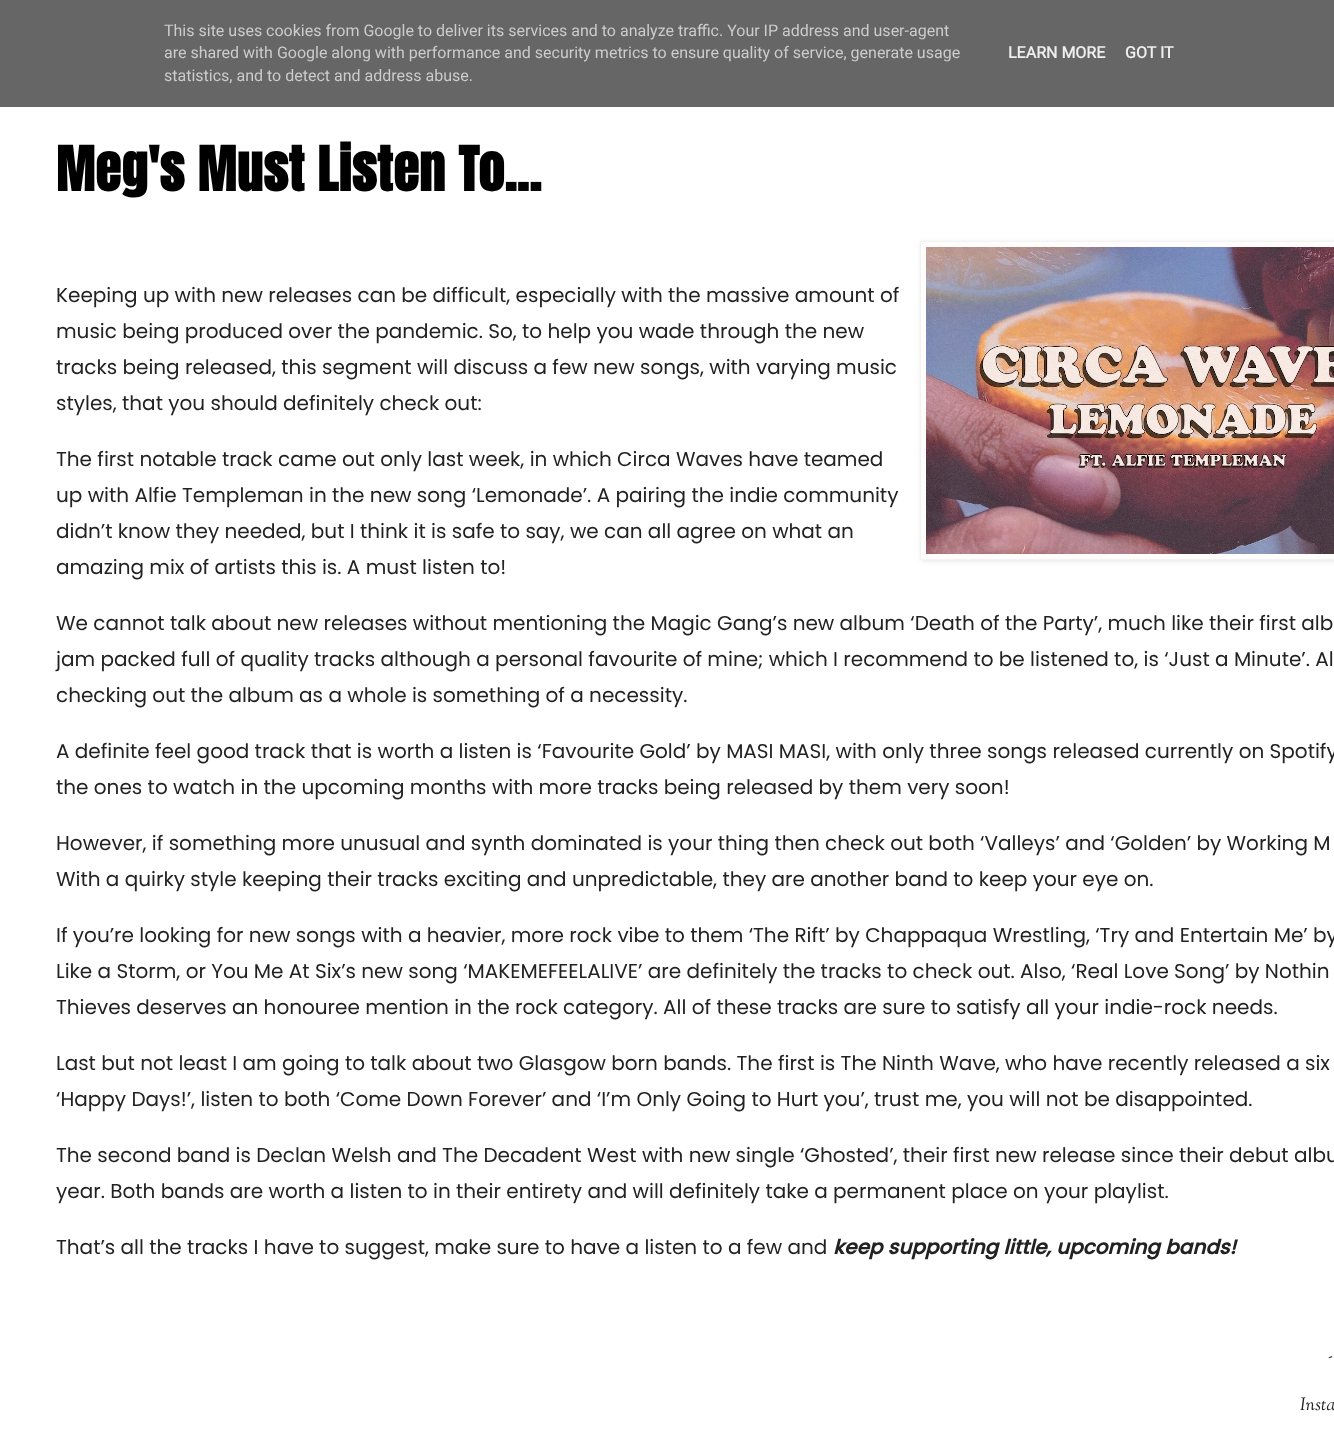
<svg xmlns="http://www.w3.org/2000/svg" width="1334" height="1444">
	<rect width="100%" height="100%" fill="#FFFFFF" />
	<rect x="0" y="0" width="1334" height="107" fill="#666666" />
	<g font-family="Roboto" font-size="16" fill="#CCCCCC">
		<text x="164" y="36">This site uses cookies from Google to deliver its services and to analyze traffic. Your IP address and user-agent</text>
		<text x="164" y="58">are shared with Google along with performance and security metrics to ensure quality of service, generate usage</text>
		<text x="164" y="81">statistics, and to detect and address abuse.</text>
	</g>
	<g font-family="Roboto" font-size="16" font-weight="700" fill="#EEEEEE">
		<text x="1008" y="58">LEARN MORE</text>
		<text x="1125" y="58">GOT IT</text>
	</g>
	<text x="56" y="191" font-family="Anton" font-size="52" font-weight="700" letter-spacing="0.5" fill="#000000">Meg's Must Listen To...</text>
	<g font-family="Poppins" font-size="20" fill="#222222">
		<text x="56" y="302">Keeping up with new releases can be difficult, especially with the massive amount of</text>
		<text x="56" y="338">music being produced over the pandemic. So, to help you wade through the new</text>
		<text x="56" y="374">tracks being released, this segment will discuss a few new songs, with varying music</text>
		<text x="56" y="410">styles, that you should definitely check out:</text>
	</g>
	<rect x="921" y="242" width="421" height="319" fill="#000000" fill-opacity="0.1" filter="blur(2.5px)" />
	<rect x="920.5" y="241.5" width="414" height="318" fill="#FFFCFC" stroke="#F3F3F3" />
	<image x="926" y="247" width="408" height="307" href="assets/img1.png" />
	<g font-family="Poppins" font-size="20" fill="#222222">
		<text x="56" y="466">The first notable track came out only last week, in which Circa Waves have teamed</text>
		<text x="56" y="502">up with Alfie Templeman in the new song ‘Lemonade’. A pairing the indie community</text>
		<text x="56" y="538">didn’t know they needed, but I think it is safe to say, we can all agree on what an</text>
		<text x="56" y="574">amazing mix of artists this is. A must listen to!</text>
		<text x="56" y="630">We cannot talk about new releases without mentioning the Magic Gang’s new album ‘Death of the Party’, much like their first alb</text>
		<text x="56" y="666">jam packed full of quality tracks although a personal favourite of mine; which I recommend to be listened to, is ‘Just a Minute’. Al</text>
		<text x="56" y="702">checking out the album as a whole is something of a necessity.</text>
		<text x="56" y="758">A definite feel good track that is worth a listen is ‘Favourite Gold’ by MASI MASI, with only three songs released currently on Spotify</text>
		<text x="56" y="794">the ones to watch in the upcoming months with more tracks being released by them very soon!</text>
		<text x="56" y="850">However, if something more unusual and synth dominated is your thing then check out both ‘Valleys’ and ‘Golden’ by Working M</text>
		<text x="56" y="886">With a quirky style keeping their tracks exciting and unpredictable, they are another band to keep your eye on.</text>
		<text x="56" y="942">If you’re looking for new songs with a heavier, more rock vibe to them ‘The Rift’ by Chappaqua Wrestling, ‘Try and Entertain Me’ by</text>
		<text x="56" y="978">Like a Storm, or You Me At Six’s new song ‘MAKEMEFEELALIVE’ are definitely the tracks to check out. Also, ‘Real Love Song’ by Nothin</text>
		<text x="56" y="1014">Thieves deserves an honouree mention in the rock category. All of these tracks are sure to satisfy all your indie-rock needs.</text>
		<text x="56" y="1070">Last but not least I am going to talk about two Glasgow born bands. The first is The Ninth Wave, who have recently released a six</text>
		<text x="56" y="1106">‘Happy Days!’, listen to both ‘Come Down Forever’ and ‘I’m Only Going to Hurt you’, trust me, you will not be disappointed.</text>
		<text x="56" y="1162">The second band is Declan Welsh and The Decadent West with new single ‘Ghosted’, their first new release since their debut albu</text>
		<text x="56" y="1198">year. Both bands are worth a listen to in their entirety and will definitely take a permanent place on your playlist.</text>
		<text x="56" y="1254">That’s all the tracks I have to suggest, make sure to have a listen to a few and</text>
	</g>
	<text x="833" y="1254" font-family="Poppins" font-size="20" font-weight="700" font-style="italic" fill="#222222">keep supporting little, upcoming bands!</text>
	<g font-family="Sorts Mill Goudy" font-size="18" font-style="italic" fill="#222222">
		<text x="1328" y="1361">-</text>
		<text x="1300" y="1410">Insta</text>
	</g>
</svg>
